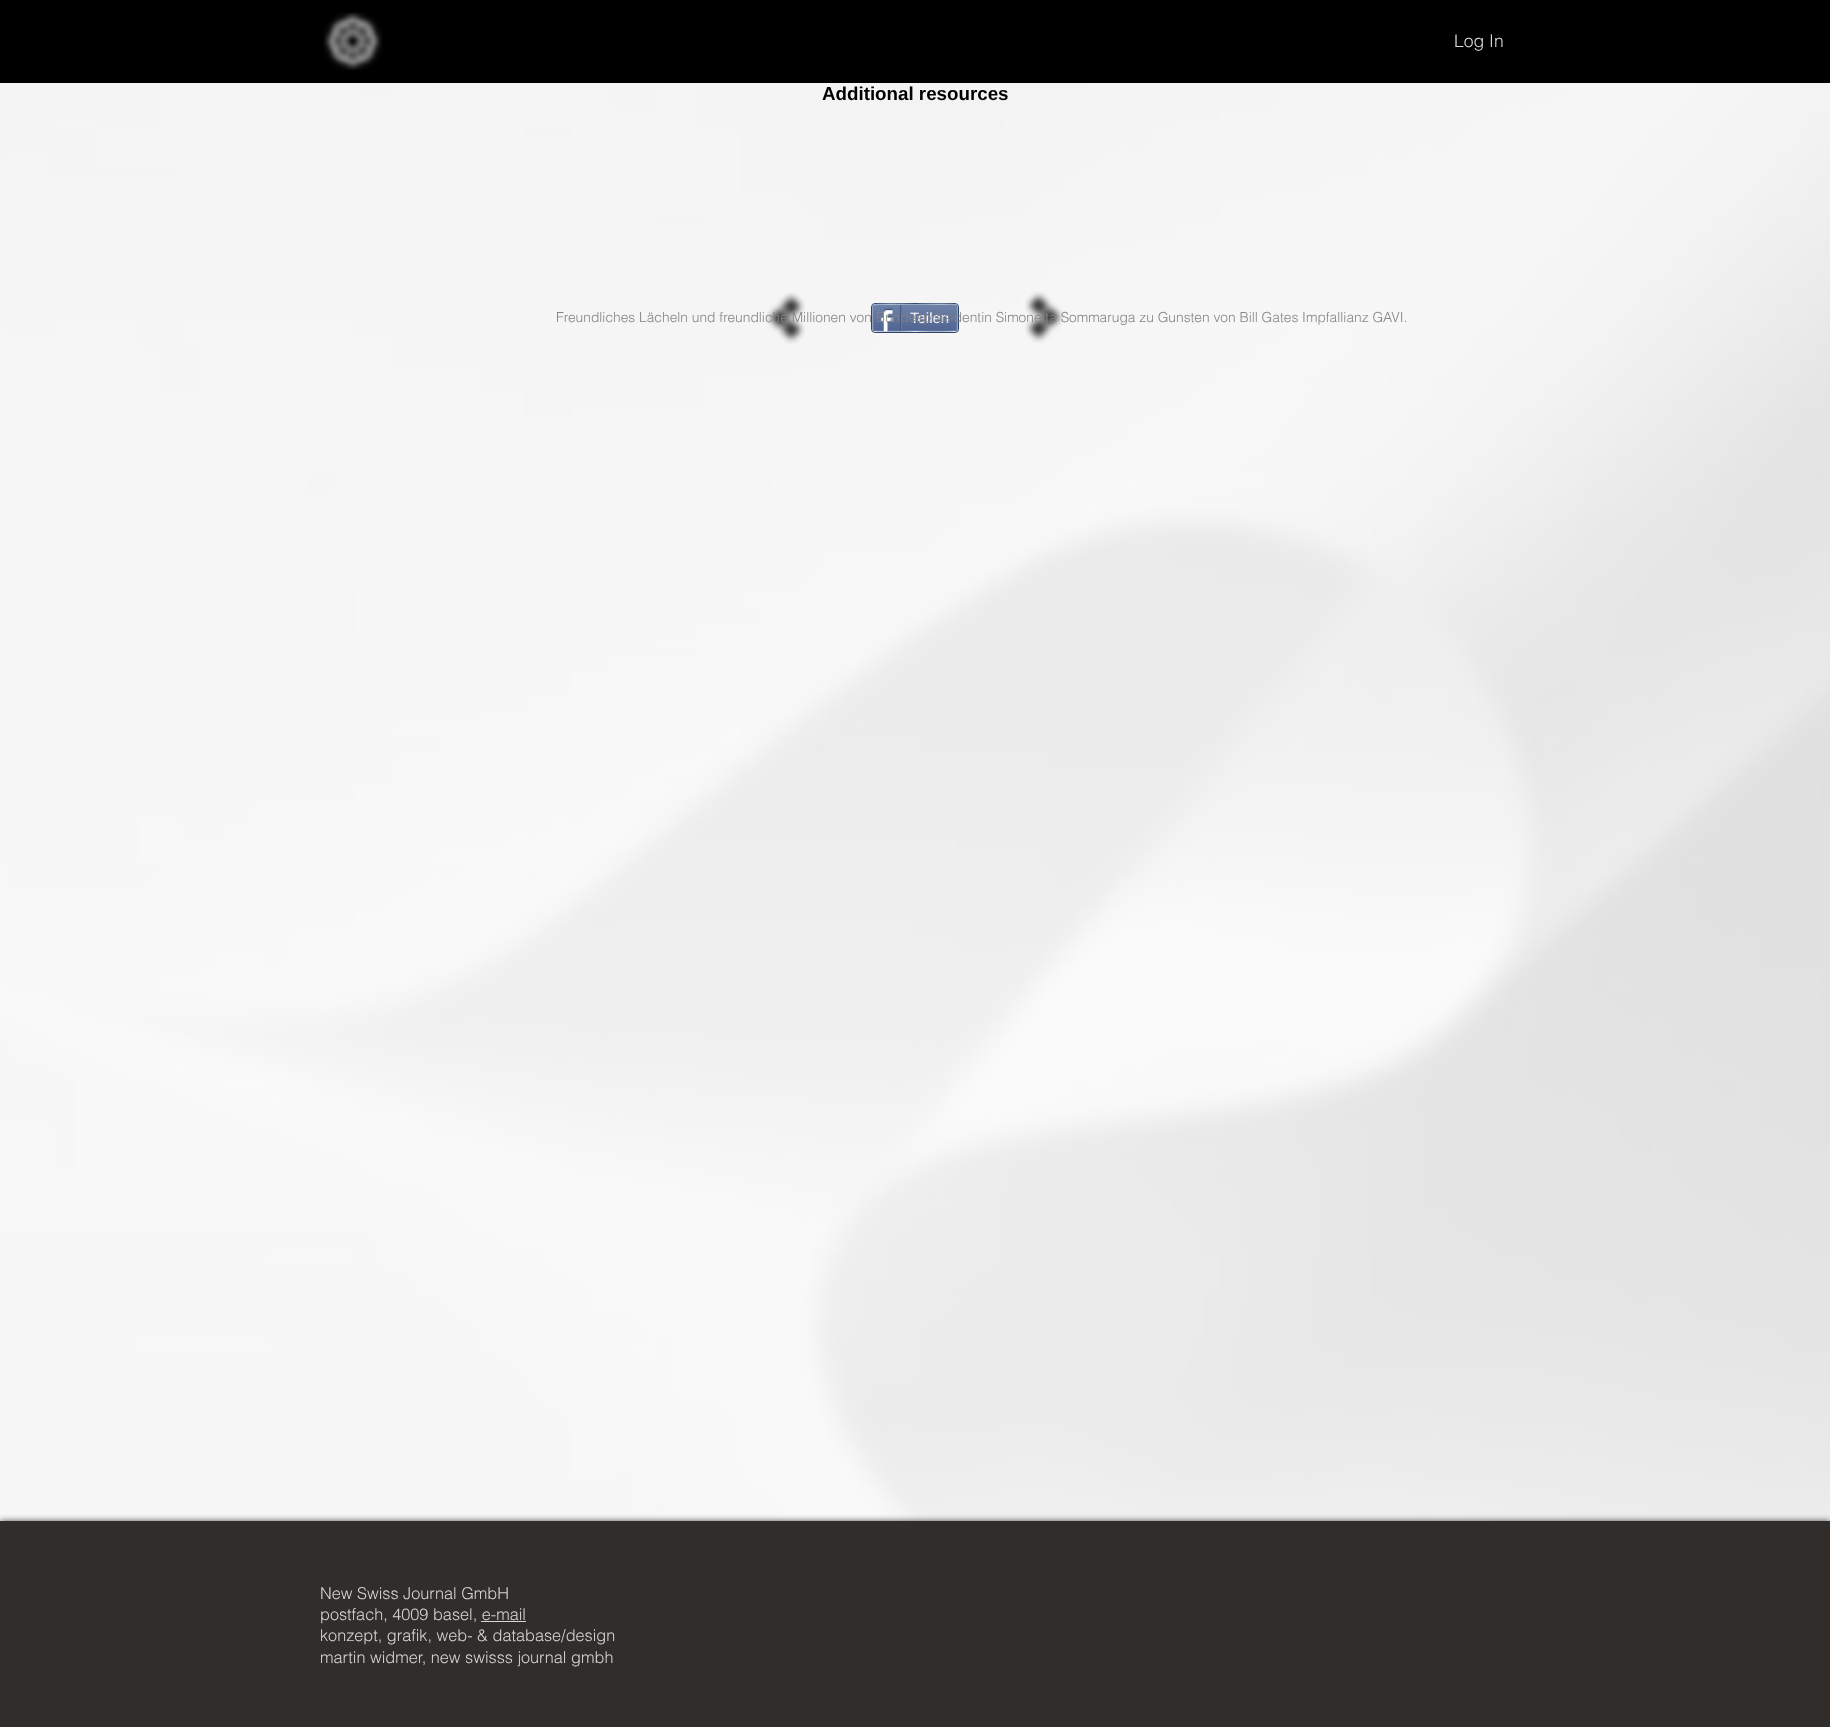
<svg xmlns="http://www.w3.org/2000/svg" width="1830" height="1727">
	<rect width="100%" height="100%" fill="#FFFFFF" />
	<rect x="0" y="0" width="1830" height="83" fill="#000000" />
	<image x="323" y="12" width="60" height="58" href="assets/img1.png" />
	<text x="1454" y="47" font-family="helvetica" font-size="17.5" font-weight="300" fill="#DBDBDB">Log In</text>
	<image x="0" y="83" width="1830" height="1438" href="assets/img6.png" />
	<text x="822" y="100" font-family="Liberation Sans" font-size="18.75" font-weight="700" fill="#000000">Additional resources</text>
	<image x="766" y="292" width="39" height="52" href="assets/img2.png" />
	<image x="1025" y="291" width="39" height="52" href="assets/img3.png" />
	<rect x="871.5" y="303.5" width="87" height="29" rx="3.5" fill="none" stroke="#2D4565" />
	<image x="872" y="305" width="86" height="27" href="assets/img4.png" />
	<path d="M873.5 305C875.5 303.5 910.5 304.5 915 304.5C919.5 304.5 954.5 303.5 956.5 305" fill="none" stroke="#9AABC6" stroke-width="1.2" />
	<path d="M956.5 305L957 306V329L956.5 330" fill="none" stroke="#6F83AD" stroke-width="1.2" />
	<path d="M956.5 330C954.5 331.5 919.5 330.5 915 330.5C910.5 330.5 875.5 331.5 873.5 330" fill="none" stroke="#6176A3" stroke-width="1.2" />
	<path d="M873.5 330L873 329V306L873.5 305" fill="none" stroke="#6F83AD" stroke-width="1.2" />
	<image x="880" y="308" width="13" height="24" href="assets/img5.png" />
	<rect x="900" y="305" width="1" height="26" fill="#425E85" />
	<text x="910" y="323" font-family="Liberation Sans" font-size="15" fill="#FFFFFF">Teilen</text>
	<rect x="901" y="305" width="1" height="25" fill="#6176A3" />
	<text x="556" y="322" font-family="helvetica" font-size="13.75" font-weight="300" fill="#878380">Freundliches Lächeln und freundliche Millionen von Bundespräsidentin Simonetta Sommaruga zu Gunsten von Bill Gates Impfallianz GAVI.</text>
	<rect x="0" y="1521" width="1830" height="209" fill="#000000" fill-opacity="0.7" filter="blur(3px)" />
	<rect x="0" y="1521" width="1830" height="206" fill="#302D2B" />
	<g font-family="helvetica" font-size="16.25" font-weight="300" fill="#D7D4D1">
		<text x="320" y="1599">New Swiss Journal GmbH</text>
		<text x="320" y="1620">postfach, 4009 basel, e-mail</text>
	</g>
	<rect x="481" y="1621" width="45" height="1" fill="#D7D4D1" />
	<g font-family="helvetica" font-size="16.25" font-weight="300" fill="#D7D4D1">
		<text x="320" y="1641">konzept, grafik, web- &amp; database/design</text>
		<text x="320" y="1663">martin widmer, new swisss journal gmbh</text>
	</g>
</svg>
